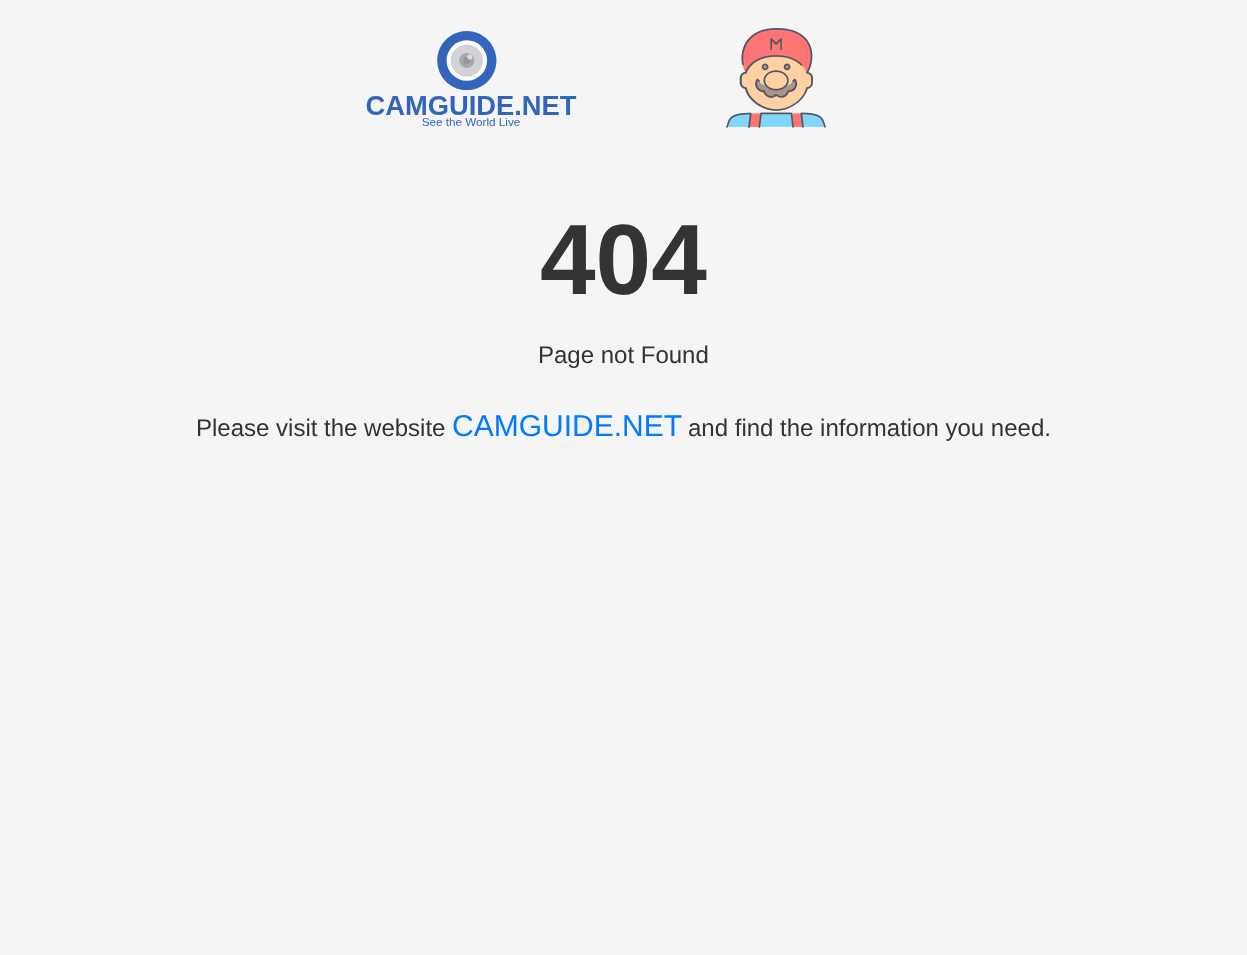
<svg xmlns="http://www.w3.org/2000/svg" width="1247" height="955">
	<rect width="100%" height="100%" fill="#F5F5F5" />
	<image x="366" y="31" width="211" height="95" href="assets/img1.png" />
	<image x="726" y="28" width="100" height="100" href="assets/img2.png" />
	<text x="540" y="294" font-family="Liberation Sans" font-size="100" font-weight="700" fill="#333333">404</text>
	<g font-family="Liberation Sans" font-size="24" fill="#333333">
		<text x="538" y="363">Page not Found</text>
		<text x="196" y="436">Please visit the website</text>
	</g>
	<text x="452" y="436" font-family="Liberation Sans" font-size="30" fill="#007BFF">CAMGUIDE.NET</text>
	<text x="688" y="436" font-family="Liberation Sans" font-size="24" fill="#333333">and find the information you need.</text>
</svg>
